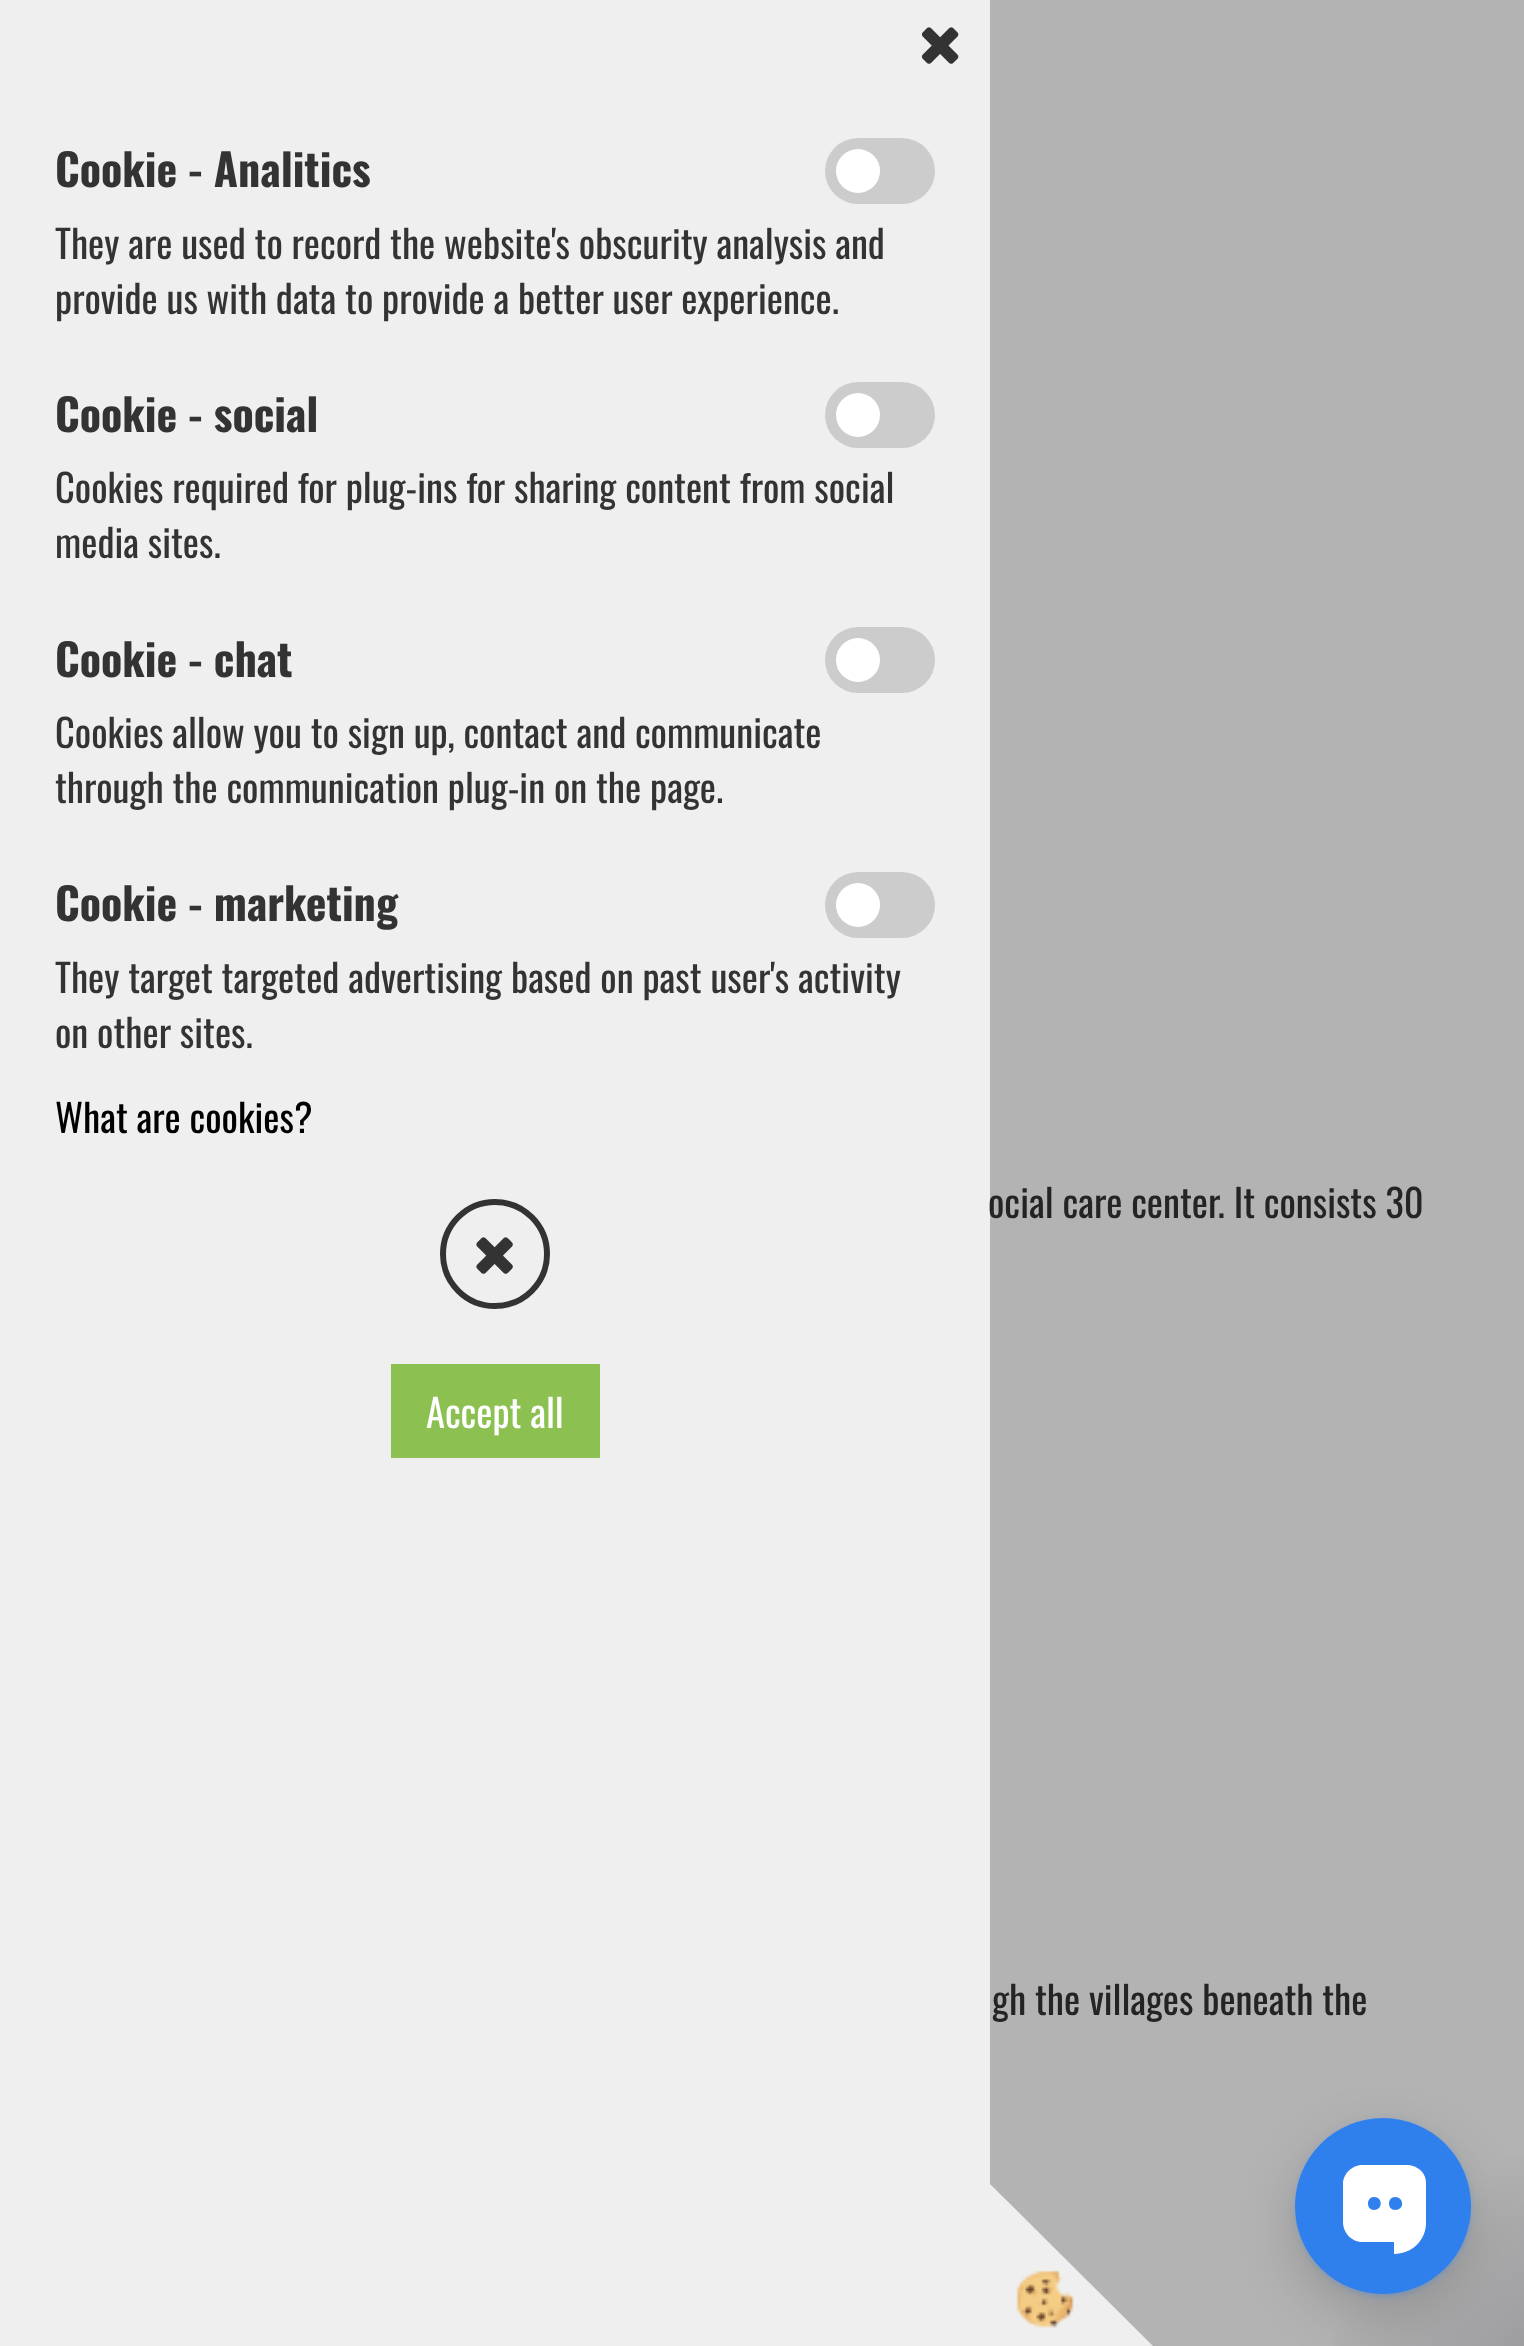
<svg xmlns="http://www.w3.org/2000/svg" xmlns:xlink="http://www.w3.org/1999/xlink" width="1524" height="2346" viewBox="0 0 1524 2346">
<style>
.cls-1{font:bold 44px Oswald;fill:#333333}
.cls-2{font:38.5px Oswald;fill:#333333}
.cls-3{font:38.5px Oswald;fill:#000000}
.cls-4{font:38.5px Oswald;fill:#ffffff}
.cls-5{font:38.5px Oswald;fill:#242424}
</style>
<defs>
<linearGradient id="g1" gradientUnits="userSpaceOnUse" x1="1251" y1="2074" x2="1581" y2="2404"><stop offset="0.5" stop-color="#b3b3b3"/><stop offset="1" stop-color="#929297"/></linearGradient>
</defs>
<rect width="100%" height="100%" fill="#b3b3b3"/>
<rect fill="#efefef" x="0" y="0" width="990" height="2346"/>
<image xlink:href="image0.png" x="921" y="27" width="38" height="37"/>
<rect fill="#cccccc" x="825" y="138" width="110" height="66" rx="33"/>
<circle fill="#ffffff" cx="858" cy="171" r="22"/>
<rect fill="#cccccc" x="825" y="382" width="110" height="66" rx="33"/>
<circle fill="#ffffff" cx="858" cy="415" r="22"/>
<rect fill="#cccccc" x="825" y="627" width="110" height="66" rx="33"/>
<circle fill="#ffffff" cx="858" cy="660" r="22"/>
<rect fill="#cccccc" x="825" y="872" width="110" height="66" rx="33"/>
<circle fill="#ffffff" cx="858" cy="905" r="22"/>
<circle fill="none" stroke="#333333" stroke-width="6" cx="495" cy="1254" r="52"/>
<image xlink:href="image1.png" x="476" y="1237" width="37" height="37"/>
<rect fill="#8cc152" x="391" y="1364" width="209" height="94"/>
<path fill="#efefef" d="M1155 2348H990V2184Z"/>
<image xlink:href="image2.png" x="1016" y="2270" width="58" height="58"/>
<rect fill="url(#g1)" x="1335" y="2157" width="189" height="189"/>
<rect fill="#000000" fill-opacity="0.16" filter="blur(27.5px)" x="1295" y="2140" width="176" height="176" rx="88"/>
<rect fill="#2f80ed" filter="blur(5.5px)" x="1301" y="2126" width="165" height="165" rx="82.5"/>
<circle fill="#2f80ed" cx="1383" cy="2206" r="88"/>
<path fill="#ffffff" d="M1407 2165H1362C1352 2165 1343 2174 1343 2184V2222C1343 2233 1352 2242 1362 2242H1394V2254C1412 2254 1426 2240 1426 2223V2184C1427 2174 1418 2165 1407 2165ZM1374 2210C1366 2210 1366 2197 1374 2197C1383 2197 1383 2210 1374 2210ZM1395 2210C1387 2210 1387 2197 1395 2197C1404 2197 1405 2210 1395 2210Z"/>
<text class="cls-1" x="55" y="187">Cookie - Analitics</text>
<text class="cls-2"><tspan x="55" y="259">They are used to record the website's obscurity analysis and</tspan><tspan x="55" y="314">provide us with data to provide a better user experience.</tspan></text>
<text class="cls-1" x="55" y="432">Cookie - social</text>
<text class="cls-2"><tspan x="55" y="503">Cookies required for plug-ins for sharing content from social</tspan><tspan x="55" y="558">media sites.</tspan></text>
<text class="cls-1" x="55" y="677">Cookie - chat</text>
<text class="cls-2"><tspan x="55" y="748">Cookies allow you to sign up, contact and communicate</tspan><tspan x="55" y="803">through the communication plug-in on the page.</tspan></text>
<text class="cls-1" x="55" y="921">Cookie - marketing</text>
<text class="cls-2"><tspan x="55" y="993">They target targeted advertising based on past user's activity</tspan><tspan x="55" y="1048">on other sites.</tspan></text>
<text class="cls-3" x="55" y="1133">What are cookies?</text>
<text class="cls-4" x="426" y="1428">Accept all</text>
<text class="cls-5" x="988" y="1218">ocial care center. It consists 30</text>
<text class="cls-5" x="992" y="2015">gh the villages beneath the</text>
</svg>
